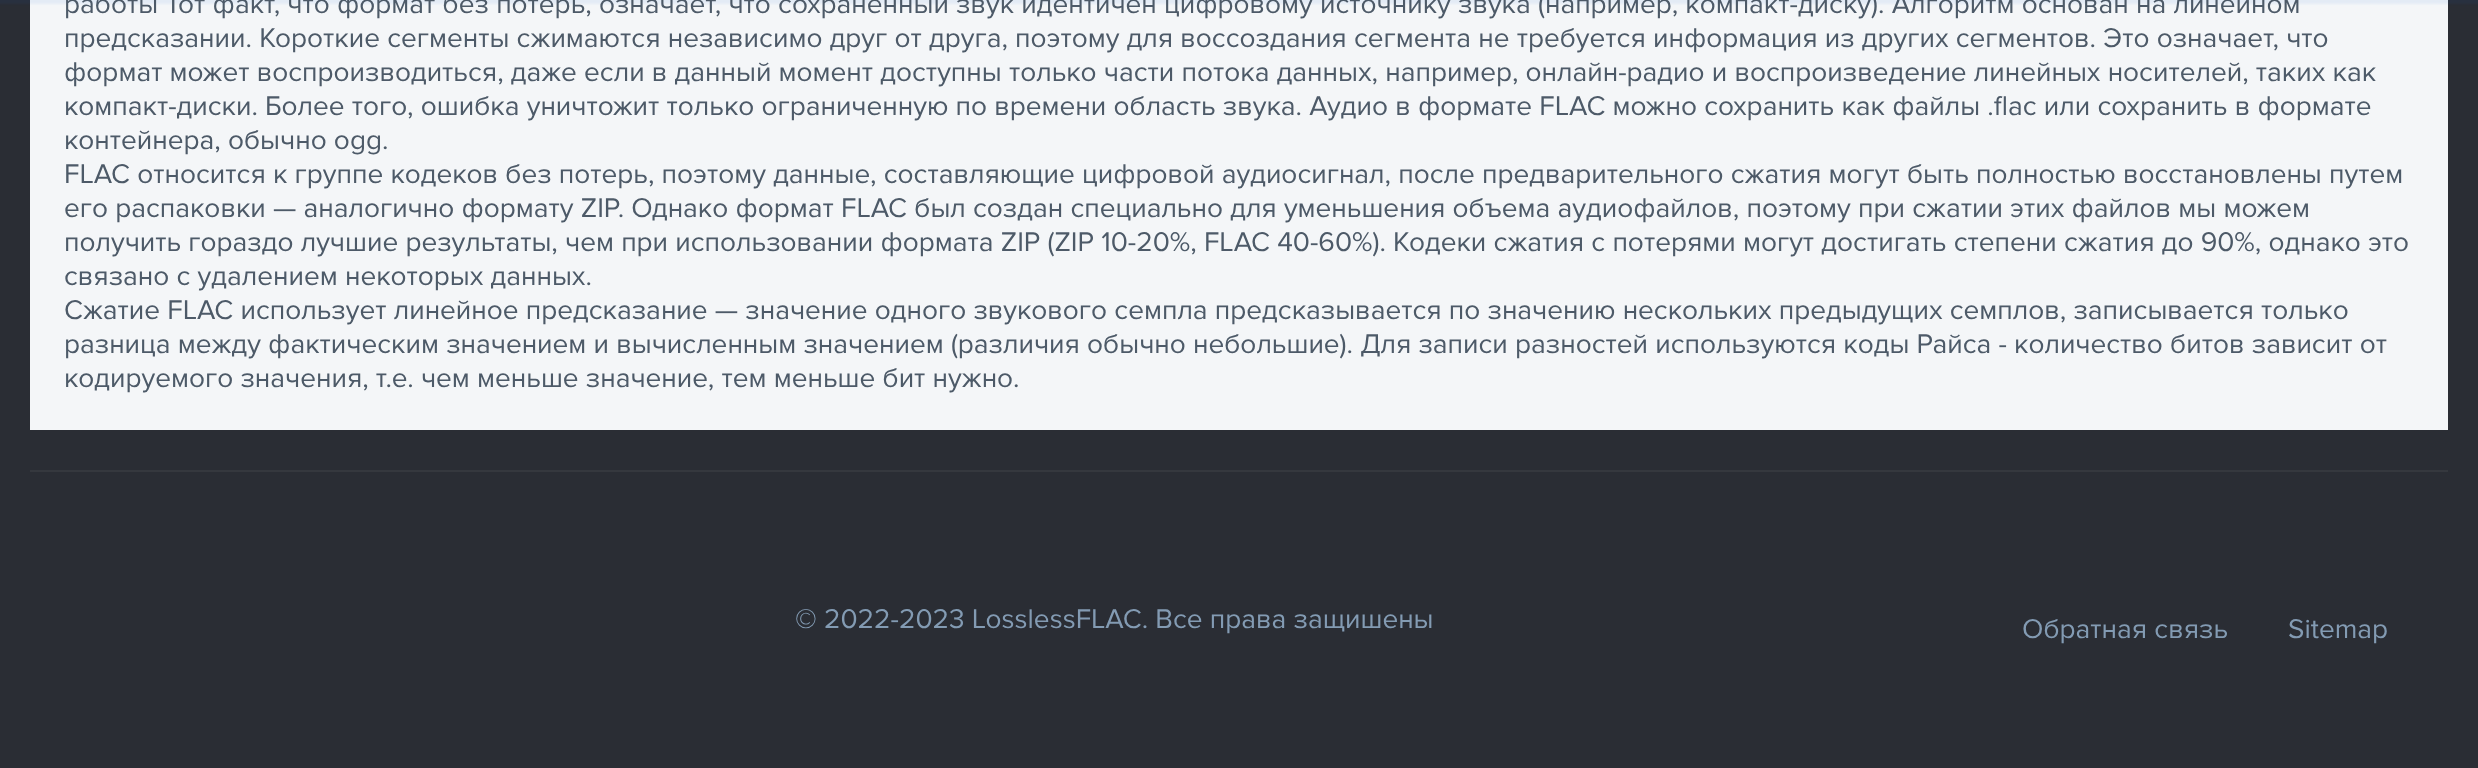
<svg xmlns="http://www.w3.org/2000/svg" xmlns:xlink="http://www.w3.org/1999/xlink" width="2478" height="768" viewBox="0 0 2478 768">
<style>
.cls-1{font:28px Proxima Nova;fill:#4d5a68}
.cls-2{font:28px Proxima Nova;fill:#839bb3}
</style>
<rect width="100%" height="100%" fill="#2a2d34"/>
<rect fill="#f4f6f8" x="30" y="0" width="2418" height="430"/>
<rect fill="#1566ce" fill-opacity="0.07" filter="blur(1px)" x="-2" y="-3" width="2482" height="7"/>
<rect fill="#35383e" x="30" y="470" width="2418" height="2"/>
<text class="cls-1"><tspan x="64" y="13">работы Тот факт, что формат без потерь, означает, что сохраненный звук идентичен цифровому источнику звука (например, компакт-диску). Алгоритм основан на линейном</tspan><tspan x="64" y="47">предсказании. Короткие сегменты сжимаются независимо друг от друга, поэтому для воссоздания сегмента не требуется информация из других сегментов. Это означает, что</tspan><tspan x="64" y="81">формат может воспроизводиться, даже если в данный момент доступны только части потока данных, например, онлайн-радио и воспроизведение линейных носителей, таких как</tspan><tspan x="64" y="115">компакт-диски. Более того, ошибка уничтожит только ограниченную по времени область звука. Аудио в формате FLAC можно сохранить как файлы .flac или сохранить в формате</tspan><tspan x="64" y="149">контейнера, обычно ogg.</tspan><tspan x="64" y="183">FLAC относится к группе кодеков без потерь, поэтому данные, составляющие цифровой аудиосигнал, после предварительного сжатия могут быть полностью восстановлены путем</tspan><tspan x="64" y="217">его распаковки — аналогично формату ZIP. Однако формат FLAC был создан специально для уменьшения объема аудиофайлов, поэтому при сжатии этих файлов мы можем</tspan><tspan x="64" y="251">получить гораздо лучшие результаты, чем при использовании формата ZIP (ZIP 10-20%, FLAC 40-60%). Кодеки сжатия с потерями могут достигать степени сжатия до 90%, однако это</tspan><tspan x="64" y="285">связано с удалением некоторых данных.</tspan><tspan x="64" y="319">Сжатие FLAC использует линейное предсказание — значение одного звукового семпла предсказывается по значению нескольких предыдущих семплов, записывается только</tspan><tspan x="64" y="353">разница между фактическим значением и вычисленным значением (различия обычно небольшие). Для записи разностей используются коды Райса - количество битов зависит от</tspan><tspan x="64" y="387">кодируемого значения, т.е. чем меньше значение, тем меньше бит нужно.</tspan></text>
<text class="cls-2" x="795" y="628">© 2022-2023 LosslessFLAC. Все права защишены</text>
<text class="cls-2" x="2022" y="638">Обратная связь</text>
<text class="cls-2" x="2288" y="638">Sitemap</text>
</svg>
